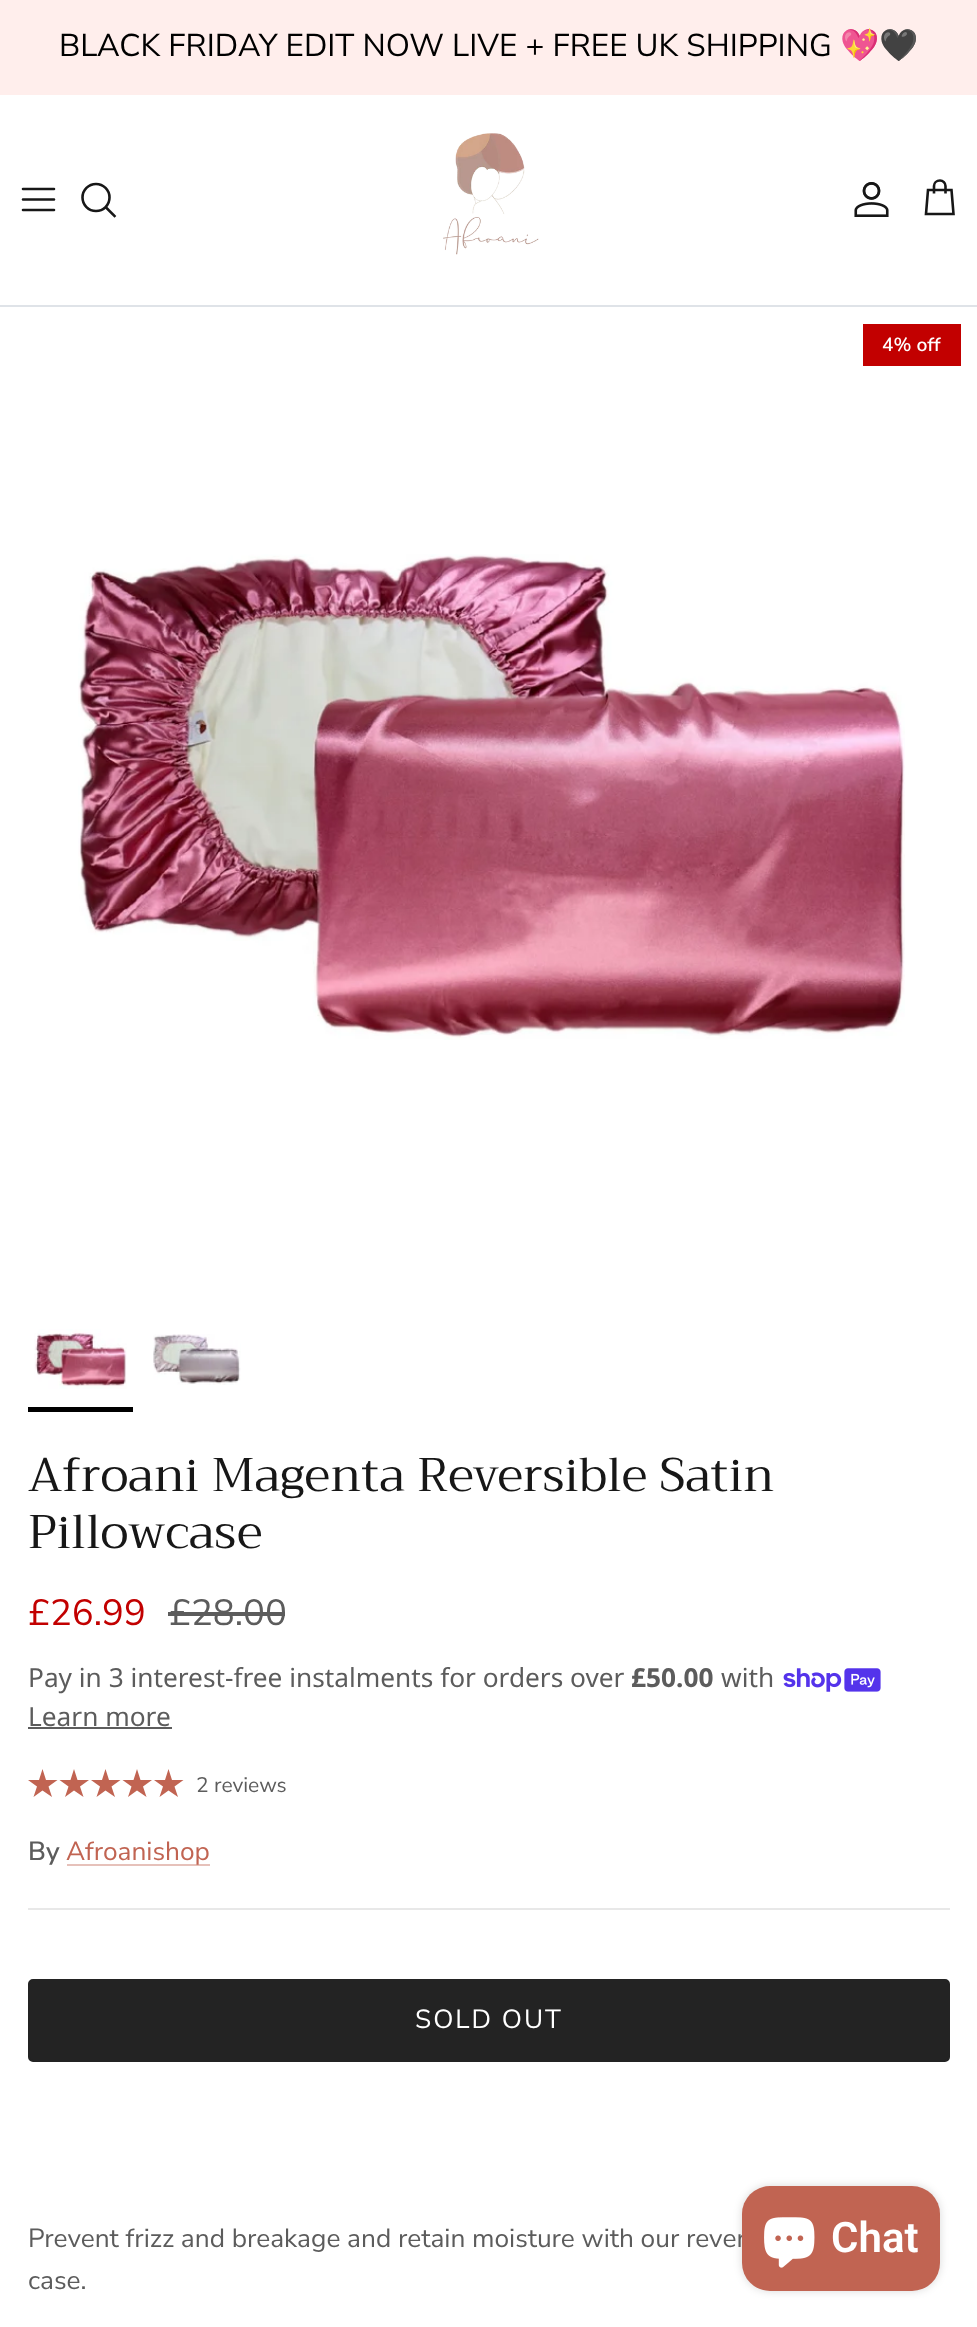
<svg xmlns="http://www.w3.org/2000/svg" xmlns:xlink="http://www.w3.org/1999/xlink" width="977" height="2327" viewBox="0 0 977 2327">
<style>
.cls-1{font:31.5px Nunito Sans;fill:#000000}
.cls-2{font:31.5px Noto Color Emoji;fill:#000000}
.cls-3{font:600 19px 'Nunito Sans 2';fill:#ffffff}
.cls-4{font:47.25px Trirong;fill:#171717}
.cls-5{font:36.5px Nunito Sans;fill:#c20000}
.cls-6{font:36.5px Nunito Sans;fill:#5c5c5c}
.cls-7{font:26.25px Noto Sans;fill:#5c5c5c}
.cls-8{font:bold 26.25px Noto Sans;fill:#5c5c5c}
.cls-9{font:21px Nunito Sans;fill:#5c5c5c}
.cls-10{font:600 26.25px Nunito Sans;fill:#5c5c5c}
.cls-11{font:26.25px Nunito Sans;fill:#c16452}
.cls-12{font:26.25px Nunito Sans;letter-spacing:2px;fill:#ffffff}
.cls-13{font:26.25px Nunito Sans;fill:#5c5c5c}
.cls-14{font:600 42px Roboto;fill:#ffffff}
</style>
<rect width="100%" height="100%" fill="#ffffff"/>
<rect fill="#ffeeec" x="0" y="0" width="977" height="95"/>
<rect fill="#dfe3e8" x="0" y="305" width="977" height="2"/>
<path fill="none" stroke="#171717" stroke-width="2.6" stroke-linecap="round" stroke-linejoin="round" d="M23 199.5H54M23 189H54M23 210H54"/>
<circle fill="none" stroke="#171717" stroke-width="2.6" cx="96" cy="197.5" r="13.5"/>
<path fill="none" stroke="#171717" stroke-width="2.6" stroke-linecap="square" d="M106.5 208L114.5 216"/>
<image xlink:href="image0.png" x="443" y="133" width="96" height="122"/>
<image xlink:href="image1.png" x="854" y="182" width="35" height="35"/>
<path fill="none" stroke="#171717" stroke-width="2.6" d="M945.5 193.5V186C945.5 183 943 180.5 940 180.5C936.5 180.5 934 183 934 186V193.5M928 190H951.5L953.5 214H926Z"/>
<rect fill="#c20000" x="863" y="324" width="98" height="42"/>
<image xlink:href="image2.png" x="78" y="554" width="827" height="486"/>
<image xlink:href="image3.png" x="34" y="1329" width="93" height="60"/>
<rect fill="#000000" x="28" y="1407" width="105" height="5"/>
<image xlink:href="image4.png" x="153" y="1334" width="88" height="51"/>
<rect fill="#5c5c5c" x="168" y="1612" width="117" height="4"/>
<image xlink:href="image5.png" x="783" y="1668" width="98" height="24"/>
<rect fill="#5c5c5c" x="28" y="1727" width="144" height="2"/>
<path fill="#c16452" fill-rule="evenodd" d="M46 1780H57.5L48.5 1786.5L52 1797L42.5 1790.5L33.5 1797L37 1786.5L28 1780H39L42.5 1769ZM77.5 1780H89L80 1786.5L83.5 1797L74 1790.5L65 1797L68.5 1786.5L59.5 1780H70.5L74 1769Z"/>
<path fill="#c16452" fill-rule="evenodd" d="M109 1780H120.5L111.5 1786.5L115 1797L105.5 1790.5L96.5 1797L100 1786.5L91 1780H102L105.5 1769ZM140.5 1780H152L143 1786.5L146.5 1797L137 1790.5L128 1797L131.5 1786.5L122.5 1780H133.5L137 1769Z"/>
<path fill="#c16452" fill-rule="evenodd" d="M172 1780H183.5L174.5 1786.5L178 1797L168.5 1790.5L159.5 1797L163 1786.5L154 1780H165L168.5 1769Z"/>
<rect fill="#e6c1ba" x="67" y="1864" width="143" height="2"/>
<rect fill="#e8e8e8" x="28" y="1908" width="922" height="2"/>
<rect fill="#232323" stroke="#232323" stroke-width="2" x="29" y="1980" width="920" height="81" rx="4"/>
<rect fill="#000000" fill-opacity="0.15" filter="blur(4.5px)" x="742" y="2186" width="198" height="105" rx="28"/>
<text class="cls-1" x="59" y="56">BLACK FRIDAY EDIT NOW LIVE + FREE UK SHIPPING</text>
<text class="cls-2" x="840" y="56">💖🖤</text>
<text class="cls-3" x="882" y="351">4% off</text>
<text class="cls-4"><tspan x="28" y="1491">Afroani Magenta Reversible Satin</tspan><tspan x="28" y="1548">Pillowcase</tspan></text>
<text class="cls-5" x="28" y="1625">£26.99</text>
<text class="cls-6" x="169" y="1625">£28.00</text>
<text class="cls-7" x="28" y="1687">Pay in 3 interest-free instalments for orders over</text>
<text class="cls-8" x="631" y="1687">£50.00</text>
<text class="cls-7" x="721" y="1687">with</text>
<text class="cls-7" x="28" y="1726">Learn more</text>
<text class="cls-9" x="196" y="1792">2 reviews</text>
<text class="cls-10" x="28" y="1860">By</text>
<text class="cls-11" x="66" y="1860">Afroanishop</text>
<text class="cls-12" x="415" y="2028">SOLD OUT</text>
<text class="cls-13"><tspan x="28" y="2247">Prevent frizz and breakage and retain moisture with our rever</tspan><tspan x="28" y="2289">case.</tspan></text>
<rect fill="#c16452" x="742" y="2186" width="198" height="105" rx="28"/>
<image xlink:href="image6.png" x="764" y="2217" width="51" height="51"/>
<text class="cls-14" x="831" y="2252">Chat</text>
</svg>
